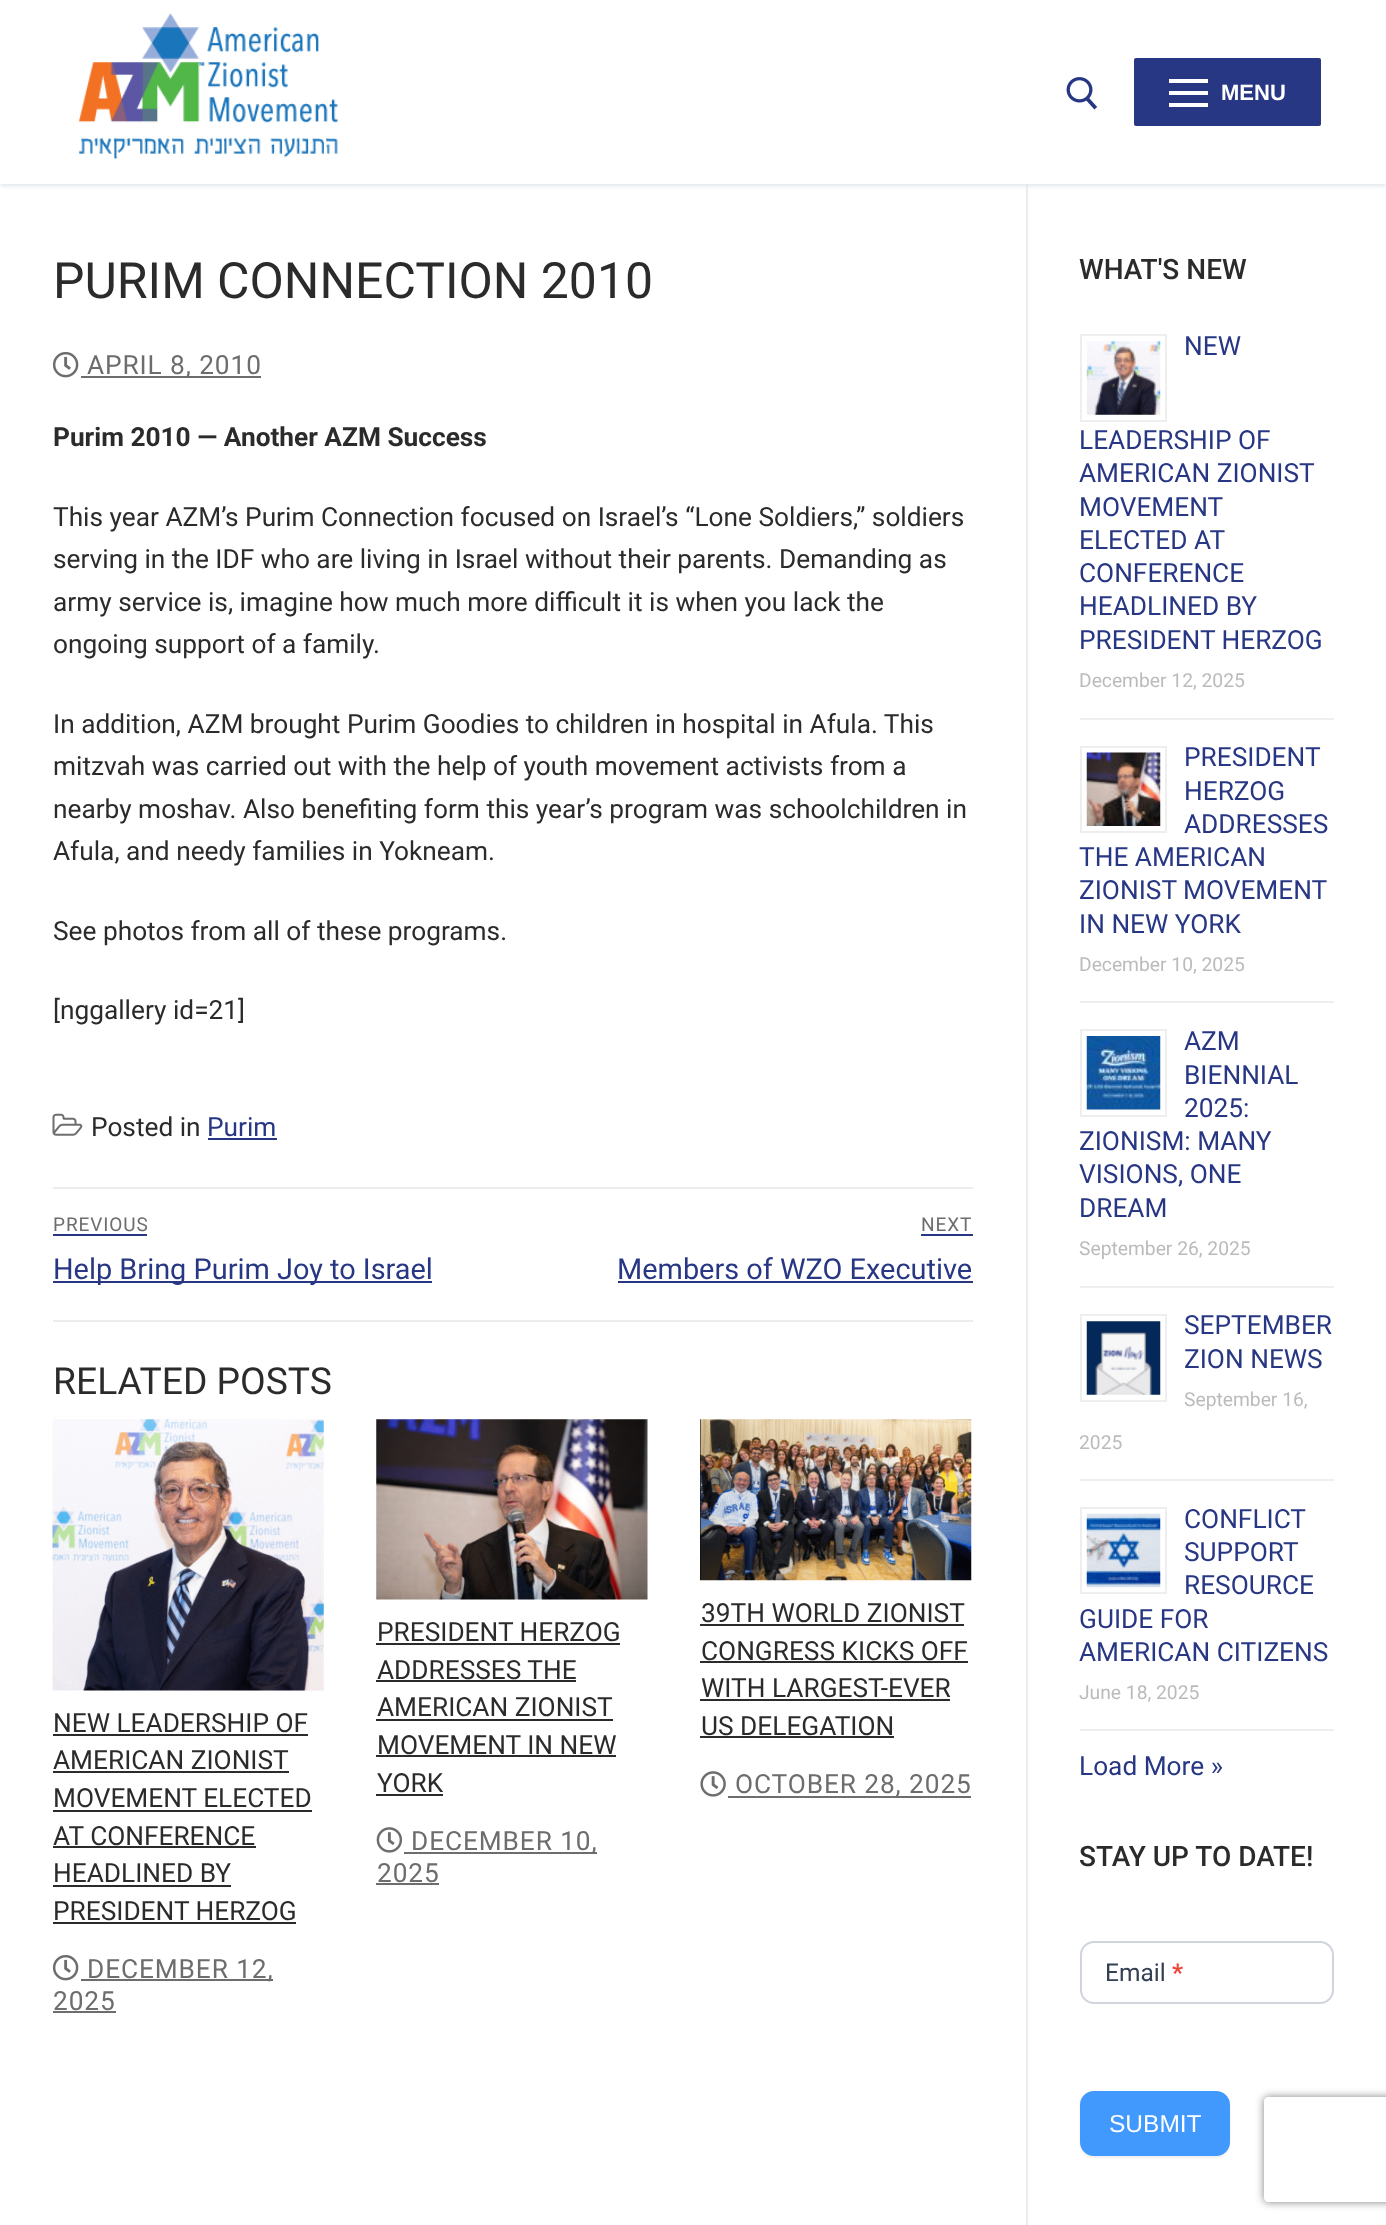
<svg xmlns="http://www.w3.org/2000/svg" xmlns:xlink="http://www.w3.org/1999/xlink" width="1386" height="2225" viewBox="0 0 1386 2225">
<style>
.cls-1{font:bold 22px Liberation Sans;fill:#ffffff}
.cls-2{font:49.9px Roboto;fill:#2b2b2b}
.cls-3{font:26.25px Roboto;letter-spacing:0.9px;fill:#6d6d6d}
.cls-4{font:bold 26.25px Roboto;fill:#2b2b2b}
.cls-5{font:26.25px Roboto;fill:#2b2b2b}
.cls-6{font:26.25px Roboto;fill:#283784}
.cls-7{font:19px Roboto;letter-spacing:0.9px;fill:#6d6d6d}
.cls-8{font:28.9px Roboto;fill:#283784}
.cls-9{font:37.25px Roboto;fill:#2b2b2b}
.cls-10{font:500 28px Roboto;fill:#2b2b2b}
.cls-11{font:19.25px Roboto;fill:#bbbbbb}
.cls-12{font:24.5px Roboto;fill:#344054}
.cls-13{font:bold 24.5px Roboto;fill:#f04438}
.cls-14{font:24.5px Liberation Sans;fill:#ffffff}
</style>
<defs>
<clipPath id="clip1"><path d="M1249 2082H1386V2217H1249ZM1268 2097H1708C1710 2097 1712 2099 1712 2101V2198C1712 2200 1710 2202 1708 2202H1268C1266 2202 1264 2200 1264 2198V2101C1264 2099 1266 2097 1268 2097Z" clip-rule="evenodd"/></clipPath>
</defs>
<rect width="100%" height="100%" fill="#ffffff"/>
<rect fill="#eaecee" x="1026" y="184" width="2" height="2041"/>
<rect fill="#e1e5ea" filter="blur(2px)" x="0" y="2" width="1386" height="184"/>
<rect fill="#ffffff" x="0" y="0" width="1386" height="184"/>
<image xlink:href="image0.png" x="78" y="13" width="260" height="146"/>
<image xlink:href="image1.png" x="1066" y="77" width="32" height="33"/>
<rect fill="#283784" x="1134" y="58" width="187" height="68" rx="2"/>
<rect fill="#ffffff" x="1169" y="91" width="39" height="4"/>
<rect fill="#ffffff" x="1169" y="79" width="39" height="4"/>
<rect fill="#ffffff" x="1169" y="103" width="39" height="4"/>
<image xlink:href="image2.png" x="52" y="351" width="27" height="27"/>
<rect fill="#6d6d6d" x="81" y="376" width="180" height="2"/>
<image xlink:href="image3.png" x="52" y="1113" width="31" height="23"/>
<rect fill="#283784" x="208" y="1138" width="69" height="2"/>
<rect fill="#eaecee" x="53" y="1187" width="920" height="2"/>
<rect fill="#eaecee" x="53" y="1320" width="920" height="2"/>
<rect fill="#283784" x="53" y="1234" width="94" height="2"/>
<rect fill="#283784" x="53" y="1281" width="379" height="2"/>
<rect fill="#283784" x="921" y="1234" width="52" height="2"/>
<rect fill="#283784" x="618" y="1281" width="355" height="2"/>
<image xlink:href="image4.png" x="52" y="1419" width="272" height="272"/>
<rect fill="#2b2b2b" x="53" y="1734" width="255" height="2"/>
<rect fill="#2b2b2b" x="53" y="1771" width="236" height="2"/>
<rect fill="#2b2b2b" x="53" y="1810" width="259" height="2"/>
<rect fill="#2b2b2b" x="53" y="1846" width="203" height="2"/>
<rect fill="#2b2b2b" x="53" y="1885" width="178" height="2"/>
<rect fill="#2b2b2b" x="53" y="1922" width="243" height="2"/>
<image xlink:href="image2.png" x="52" y="1954" width="27" height="27"/>
<rect fill="#6d6d6d" x="81" y="1979" width="192" height="2"/>
<rect fill="#6d6d6d" x="53" y="2011" width="63" height="2"/>
<image xlink:href="image5.png" x="376" y="1419" width="272" height="181"/>
<rect fill="#2b2b2b" x="376" y="1643" width="244" height="2"/>
<rect fill="#2b2b2b" x="376" y="1680" width="200" height="2"/>
<rect fill="#2b2b2b" x="376" y="1719" width="237" height="2"/>
<rect fill="#2b2b2b" x="376" y="1755" width="240" height="2"/>
<rect fill="#2b2b2b" x="376" y="1794" width="67" height="2"/>
<image xlink:href="image6.png" x="376" y="1827" width="27" height="26"/>
<rect fill="#6d6d6d" x="404" y="1852" width="193" height="2"/>
<rect fill="#6d6d6d" x="376" y="1883" width="63" height="2"/>
<image xlink:href="image7.png" x="700" y="1419" width="272" height="162"/>
<rect fill="#2b2b2b" x="700" y="1624" width="264" height="2"/>
<rect fill="#2b2b2b" x="700" y="1661" width="268" height="2"/>
<rect fill="#2b2b2b" x="700" y="1699" width="250" height="2"/>
<rect fill="#2b2b2b" x="700" y="1736" width="194" height="2"/>
<image xlink:href="image8.png" x="700" y="1771" width="26" height="26"/>
<rect fill="#6d6d6d" x="728" y="1796" width="243" height="2"/>
<rect fill="#eeeeee" x="1080" y="718" width="254" height="2"/>
<rect fill="none" stroke="#eeeeee" stroke-width="2" x="1081" y="335" width="85" height="86"/>
<image xlink:href="image9.png" x="1086" y="341" width="75" height="74"/>
<rect fill="#eeeeee" x="1080" y="1001" width="254" height="2"/>
<rect fill="none" stroke="#eeeeee" stroke-width="2" x="1081" y="747" width="85" height="85"/>
<image xlink:href="image10.png" x="1086" y="752" width="75" height="74"/>
<rect fill="#eeeeee" x="1080" y="1286" width="254" height="2"/>
<rect fill="none" stroke="#eeeeee" stroke-width="2" x="1081" y="1030" width="85" height="86"/>
<image xlink:href="image11.png" x="1086" y="1036" width="75" height="74"/>
<rect fill="#eeeeee" x="1080" y="1479" width="254" height="2"/>
<rect fill="none" stroke="#eeeeee" stroke-width="2" x="1081" y="1315" width="85" height="86"/>
<image xlink:href="image12.png" x="1086" y="1321" width="75" height="74"/>
<rect fill="#eeeeee" x="1080" y="1729" width="254" height="2"/>
<rect fill="none" stroke="#eeeeee" stroke-width="2" x="1081" y="1508" width="85" height="85"/>
<image xlink:href="image13.png" x="1086" y="1513" width="75" height="75"/>
<rect fill="none" stroke="#d0d5dd" stroke-width="2" x="1081" y="1942" width="252" height="61" rx="13"/>
<rect fill="#eeeeee" filter="blur(1px)" x="1080" y="2093" width="150" height="65" rx="14"/>
<rect fill="#4199fd" stroke="#4199fd" stroke-width="2" x="1081" y="2092" width="148" height="63" rx="13"/>
<g clip-path="url(#clip1)">
<rect fill="#808080" filter="blur(4.5px)" x="1264" y="2097" width="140" height="105" rx="4"/>
</g>
<text class="cls-1" x="1221" y="100">MENU</text>
<text class="cls-2" x="53" y="298">PURIM CONNECTION 2010</text>
<text class="cls-3" x="87" y="374">APRIL 8, 2010</text>
<text class="cls-4" x="53" y="446">Purim 2010 — Another AZM Success</text>
<text class="cls-5"><tspan x="53" y="526">This year AZM’s Purim Connection focused on Israel’s “Lone Soldiers,” soldiers</tspan><tspan x="53" y="568">serving in the IDF who are living in Israel without their parents. Demanding as</tspan><tspan x="53" y="611">army service is, imagine how much more difficult it is when you lack the</tspan><tspan x="53" y="653">ongoing support of a family.</tspan></text>
<text class="cls-5"><tspan x="53" y="733">In addition, AZM brought Purim Goodies to children in hospital in Afula. This</tspan><tspan x="53" y="775">mitzvah was carried out with the help of youth movement activists from a</tspan><tspan x="53" y="818">nearby moshav. Also benefiting form this year’s program was schoolchildren in</tspan><tspan x="53" y="860">Afula, and needy families in Yokneam.</tspan></text>
<text class="cls-5" x="53" y="940">See photos from all of these programs.</text>
<text class="cls-5" x="53" y="1019">[nggallery id=21]</text>
<text class="cls-5" x="91" y="1136">Posted in</text>
<text class="cls-6" x="207" y="1136">Purim</text>
<text class="cls-7" x="53" y="1231">PREVIOUS</text>
<text class="cls-8" x="53" y="1279">Help Bring Purim Joy to Israel</text>
<text class="cls-7" x="921" y="1231">NEXT</text>
<text class="cls-8" x="617" y="1279">Members of WZO Executive</text>
<text class="cls-9" x="53" y="1394">RELATED POSTS</text>
<text class="cls-5"><tspan x="53" y="1732">NEW LEADERSHIP OF</tspan><tspan x="53" y="1769">AMERICAN ZIONIST</tspan><tspan x="53" y="1807">MOVEMENT ELECTED</tspan><tspan x="53" y="1845">AT CONFERENCE</tspan><tspan x="53" y="1882">HEADLINED BY</tspan><tspan x="53" y="1920">PRESIDENT HERZOG</tspan></text>
<text class="cls-3" x="87" y="1978">DECEMBER 12,</text>
<text class="cls-3" x="53" y="2010">2025</text>
<text class="cls-5"><tspan x="377" y="1641">PRESIDENT HERZOG</tspan><tspan x="377" y="1679">ADDRESSES THE</tspan><tspan x="377" y="1716">AMERICAN ZIONIST</tspan><tspan x="377" y="1754">MOVEMENT IN NEW</tspan><tspan x="377" y="1792">YORK</tspan></text>
<text class="cls-3" x="411" y="1850">DECEMBER 10,</text>
<text class="cls-3" x="377" y="1882">2025</text>
<text class="cls-5"><tspan x="701" y="1622">39TH WORLD ZIONIST</tspan><tspan x="701" y="1660">CONGRESS KICKS OFF</tspan><tspan x="701" y="1697">WITH LARGEST-EVER</tspan><tspan x="701" y="1735">US DELEGATION</tspan></text>
<text class="cls-3" x="735" y="1793">OCTOBER 28, 2025</text>
<text class="cls-10" x="1079" y="279">WHAT'S NEW</text>
<text class="cls-6" x="1184" y="355">NEW</text>
<text class="cls-6"><tspan x="1079" y="449">LEADERSHIP OF</tspan><tspan x="1079" y="482">AMERICAN ZIONIST</tspan><tspan x="1079" y="516">MOVEMENT</tspan><tspan x="1079" y="549">ELECTED AT</tspan><tspan x="1079" y="582">CONFERENCE</tspan><tspan x="1079" y="615">HEADLINED BY</tspan><tspan x="1079" y="649">PRESIDENT HERZOG</tspan></text>
<text class="cls-11" x="1079" y="687">December 12, 2025</text>
<text class="cls-6"><tspan x="1184" y="766">PRESIDENT</tspan><tspan x="1184" y="800">HERZOG</tspan><tspan x="1184" y="833">ADDRESSES</tspan></text>
<text class="cls-6"><tspan x="1079" y="866">THE AMERICAN</tspan><tspan x="1079" y="899">ZIONIST MOVEMENT</tspan><tspan x="1079" y="933">IN NEW YORK</tspan></text>
<text class="cls-11" x="1079" y="971">December 10, 2025</text>
<text class="cls-6"><tspan x="1184" y="1050">AZM</tspan><tspan x="1184" y="1084">BIENNIAL</tspan><tspan x="1184" y="1117">2025:</tspan></text>
<text class="cls-6"><tspan x="1079" y="1150">ZIONISM: MANY</tspan><tspan x="1079" y="1183">VISIONS, ONE</tspan><tspan x="1079" y="1217">DREAM</tspan></text>
<text class="cls-11" x="1079" y="1255">September 26, 2025</text>
<text class="cls-6"><tspan x="1184" y="1334">SEPTEMBER</tspan><tspan x="1184" y="1368">ZION NEWS</tspan></text>
<text class="cls-11" x="1184" y="1406">September 16,</text>
<text class="cls-11" x="1079" y="1449">2025</text>
<text class="cls-6"><tspan x="1184" y="1528">CONFLICT</tspan><tspan x="1184" y="1561">SUPPORT</tspan><tspan x="1184" y="1594">RESOURCE</tspan></text>
<text class="cls-6"><tspan x="1079" y="1628">GUIDE FOR</tspan><tspan x="1079" y="1661">AMERICAN CITIZENS</tspan></text>
<text class="cls-11" x="1079" y="1699">June 18, 2025</text>
<text class="cls-6" x="1079" y="1775">Load More »</text>
<text class="cls-10" x="1079" y="1866">STAY UP TO DATE!</text>
<text class="cls-12" x="1105" y="1981">Email</text>
<text class="cls-13" x="1172" y="1981">*</text>
<text class="cls-14" x="1109" y="2132">SUBMIT</text>
</svg>
